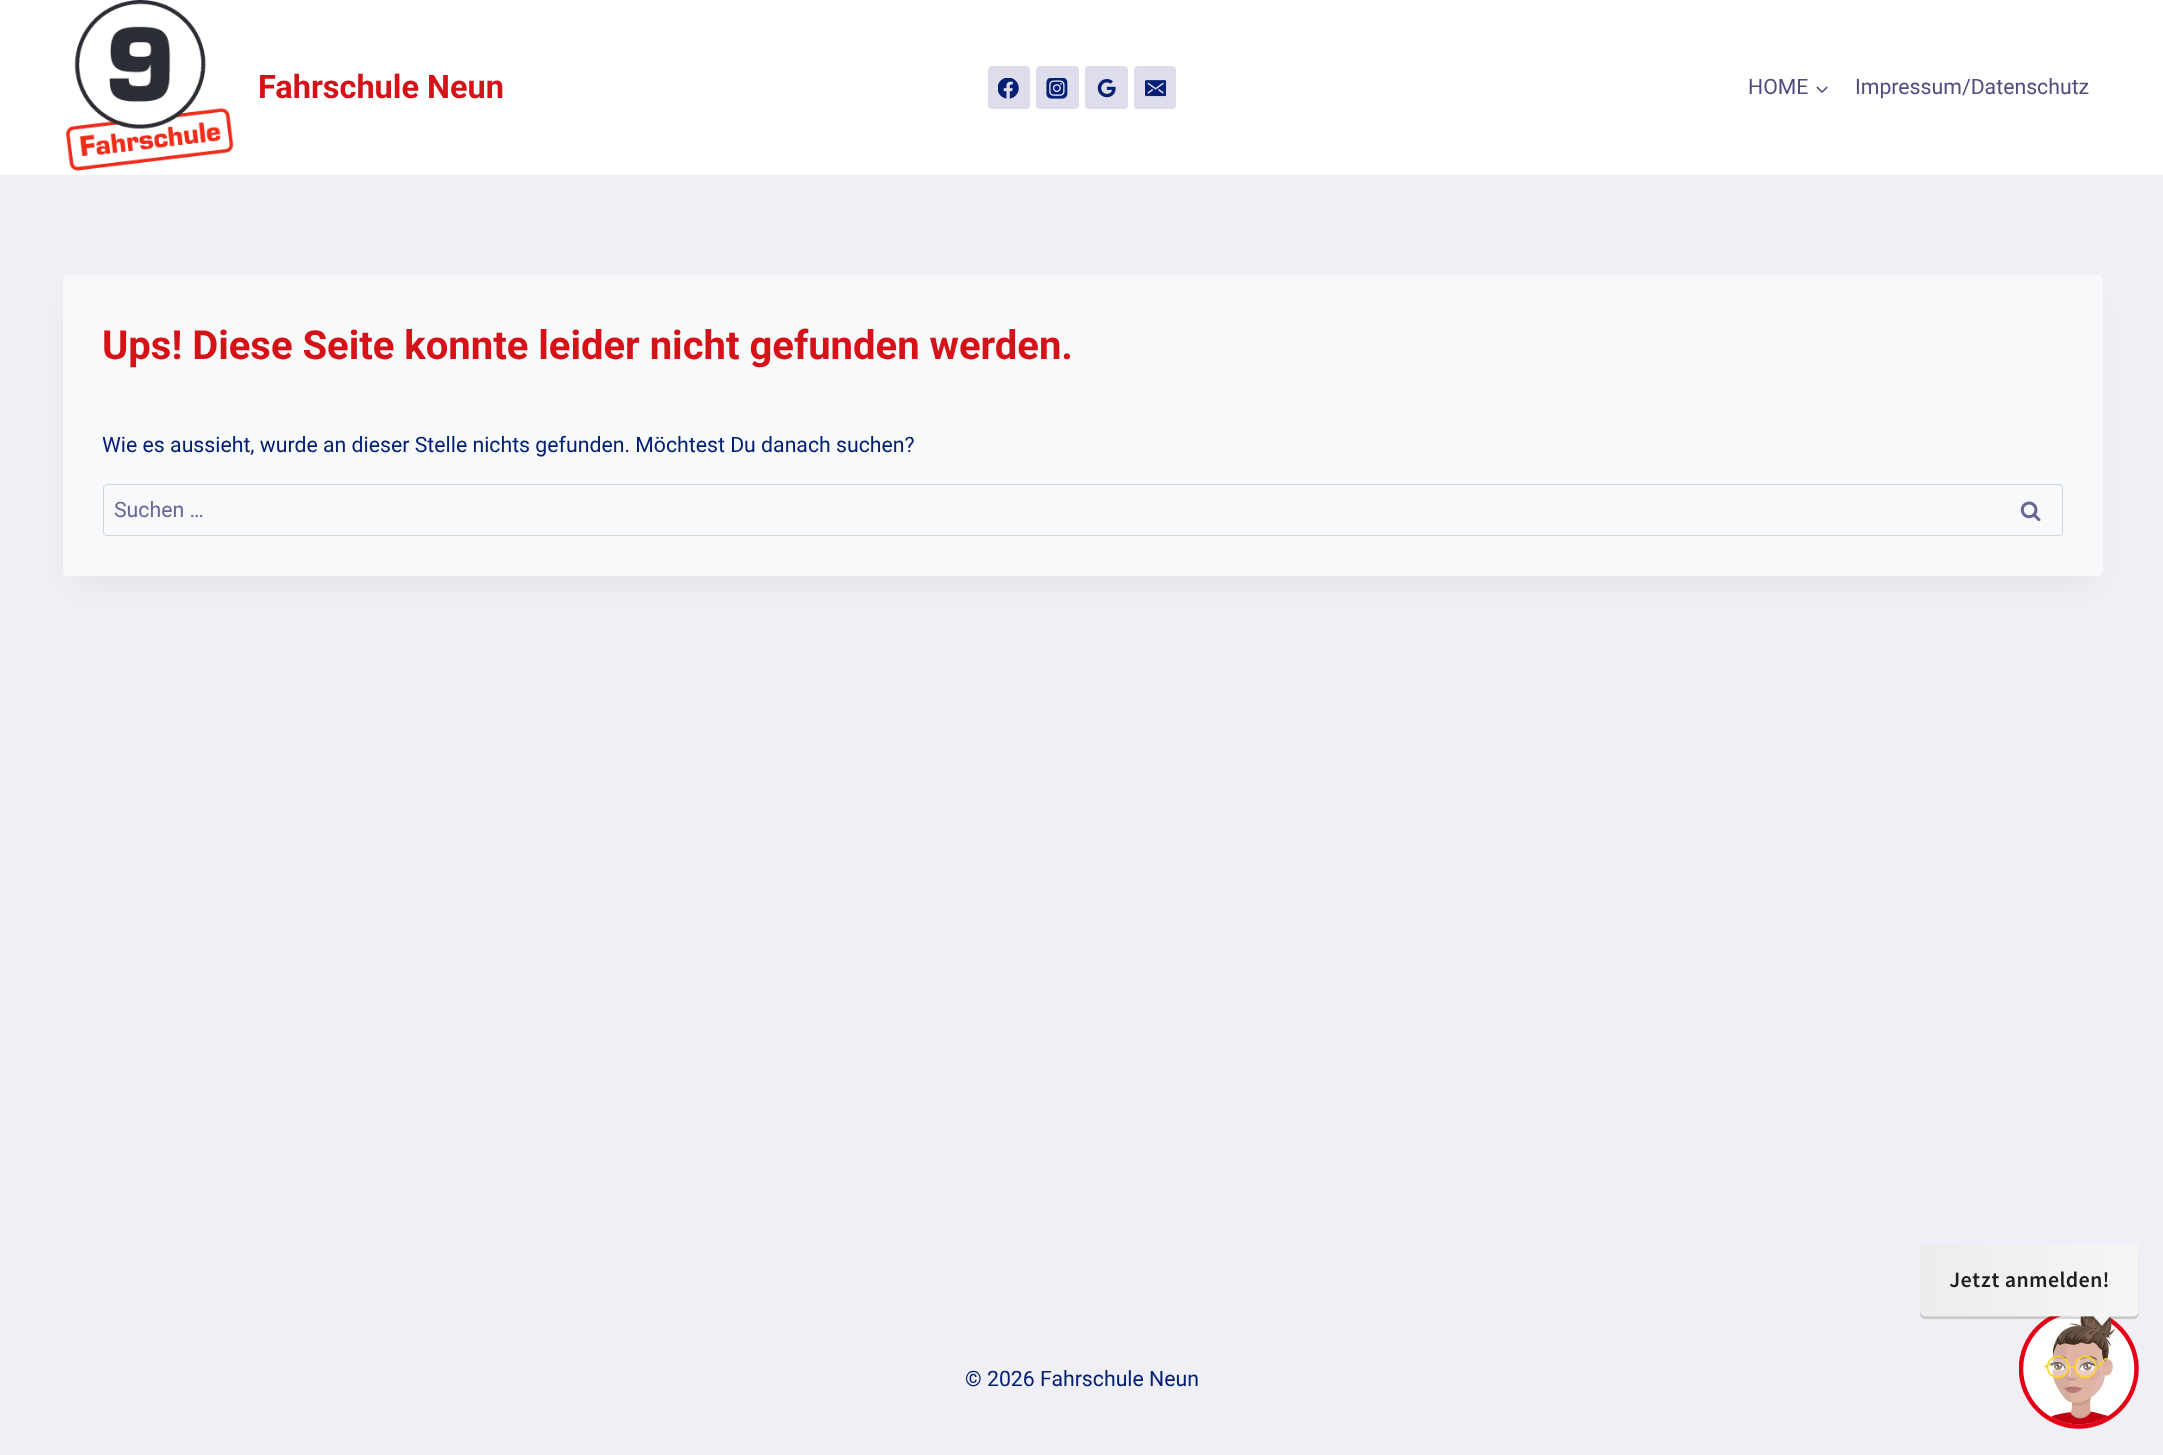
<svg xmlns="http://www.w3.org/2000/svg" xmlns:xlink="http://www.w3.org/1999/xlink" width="2163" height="1455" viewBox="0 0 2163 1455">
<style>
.cls-1{font:bold 32.5px Roboto;fill:#d41217}
.cls-2{font:21.25px Roboto;fill:#514d7c}
.cls-3{font:bold 40px Roboto;fill:#d41217}
.cls-4{font:21.25px Roboto;fill:#032075}
.cls-5{font:21.25px Roboto;fill:#666699}
</style>
<rect width="100%" height="100%" fill="#efeff5"/>
<rect fill="#ffffff" x="0" y="0" width="2163" height="175"/>
<image xlink:href="image0.png" x="66" y="0" width="168" height="171"/>
<rect fill="#deddeb" x="988" y="66" width="42" height="43" rx="4"/>
<image xlink:href="image1.png" x="998" y="78" width="21" height="21"/>
<rect fill="#deddeb" x="1036" y="66" width="43" height="43" rx="4"/>
<image xlink:href="image2.png" x="1046" y="78" width="22" height="21"/>
<rect fill="#deddeb" x="1085" y="66" width="43" height="43" rx="4"/>
<image xlink:href="image3.png" x="1097" y="79" width="19" height="19"/>
<rect fill="#deddeb" x="1134" y="66" width="42" height="43" rx="4"/>
<image xlink:href="image4.png" x="1145" y="80" width="21" height="17"/>
<image xlink:href="image5.png" x="1816" y="86" width="12" height="7"/>
<rect fill="#000000" fill-opacity="0.05" filter="blur(15.5px)" x="75" y="306" width="2015" height="277"/>
<rect fill="#f8f9fa" x="63" y="275" width="2040" height="301" rx="5"/>
<rect fill="none" stroke="#cbd5e0" x="103.5" y="484.5" width="1959" height="51" rx="3.5"/>
<image xlink:href="image6.png" x="2020" y="501" width="21" height="20"/>
<image xlink:href="image8.png" x="2019" y="1316" width="120" height="113"/>
<image xlink:href="image7.png" x="1920" y="1243" width="219" height="87"/>
<text class="cls-1" x="258" y="98">Fahrschule Neun</text>
<text class="cls-2" x="1748" y="94">HOME</text>
<text class="cls-2" x="1855" y="94">Impressum/Datenschutz</text>
<text class="cls-3" x="102" y="359">Ups! Diese Seite konnte leider nicht gefunden werden.</text>
<text class="cls-4" x="102" y="452">Wie es aussieht, wurde an dieser Stelle nichts gefunden. Möchtest Du danach suchen?</text>
<text class="cls-5" x="114" y="517">Suchen …</text>
<text class="cls-4" x="965" y="1386">© 2026 Fahrschule Neun</text>
</svg>
